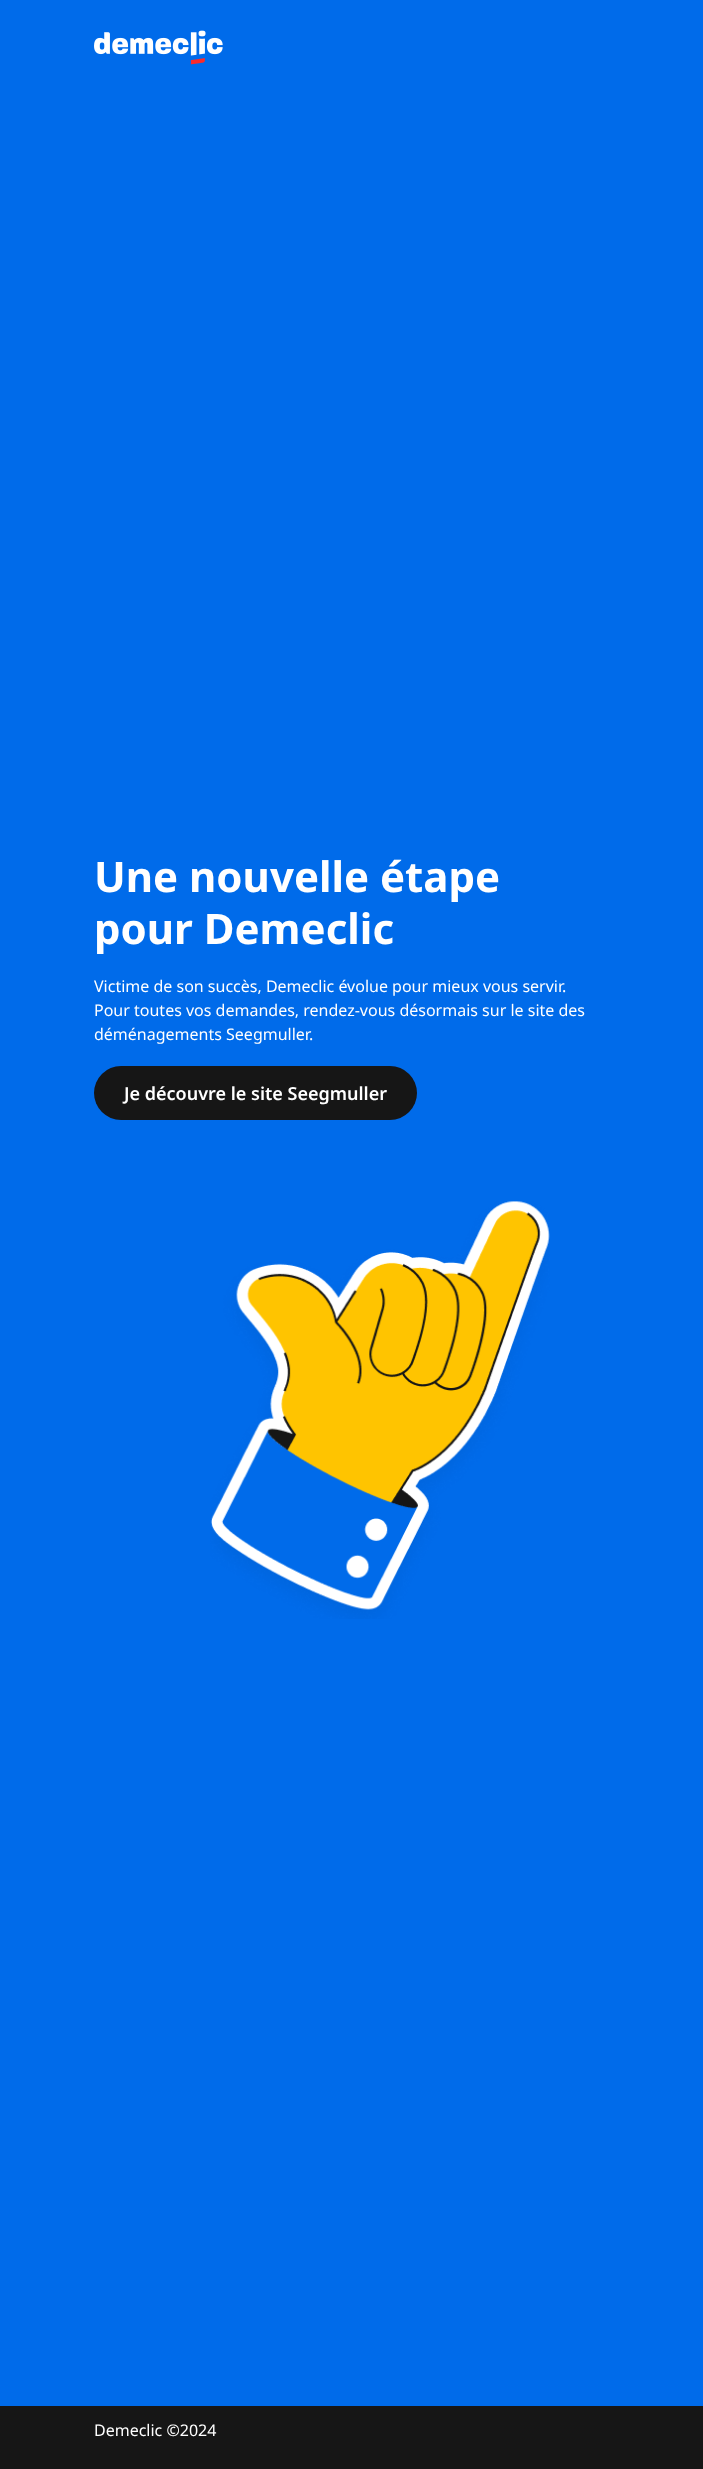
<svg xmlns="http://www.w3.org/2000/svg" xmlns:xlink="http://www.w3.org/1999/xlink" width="703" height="2469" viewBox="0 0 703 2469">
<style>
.cls-1{font:bold 42px Noto Sans;fill:#ffffff}
.cls-2{font:16px Noto Sans;fill:#ffffff}
.cls-3{font:600 18px Noto Sans;fill:#ffffff}
</style>
<rect width="100%" height="100%" fill="#006bea"/>
<image xlink:href="image0.png" x="94" y="30" width="129" height="35"/>
<rect fill="#161616" x="94" y="1066" width="323" height="54" rx="27"/>
<image xlink:href="image1.png" x="210" y="1201" width="340" height="418"/>
<rect fill="#161616" x="0" y="2406" width="703" height="63"/>
<text class="cls-1"><tspan x="94" y="892">Une nouvelle étape</tspan><tspan x="94" y="944">pour Demeclic</tspan></text>
<text class="cls-2"><tspan x="94" y="992">Victime de son succès, Demeclic évolue pour mieux vous servir.</tspan><tspan x="94" y="1016">Pour toutes vos demandes, rendez-vous désormais sur le site des</tspan><tspan x="94" y="1040">déménagements Seegmuller.</tspan></text>
<text class="cls-3" x="124" y="1100">Je découvre le site Seegmuller</text>
<text class="cls-2" x="94" y="2436">Demeclic ©2024</text>
</svg>
